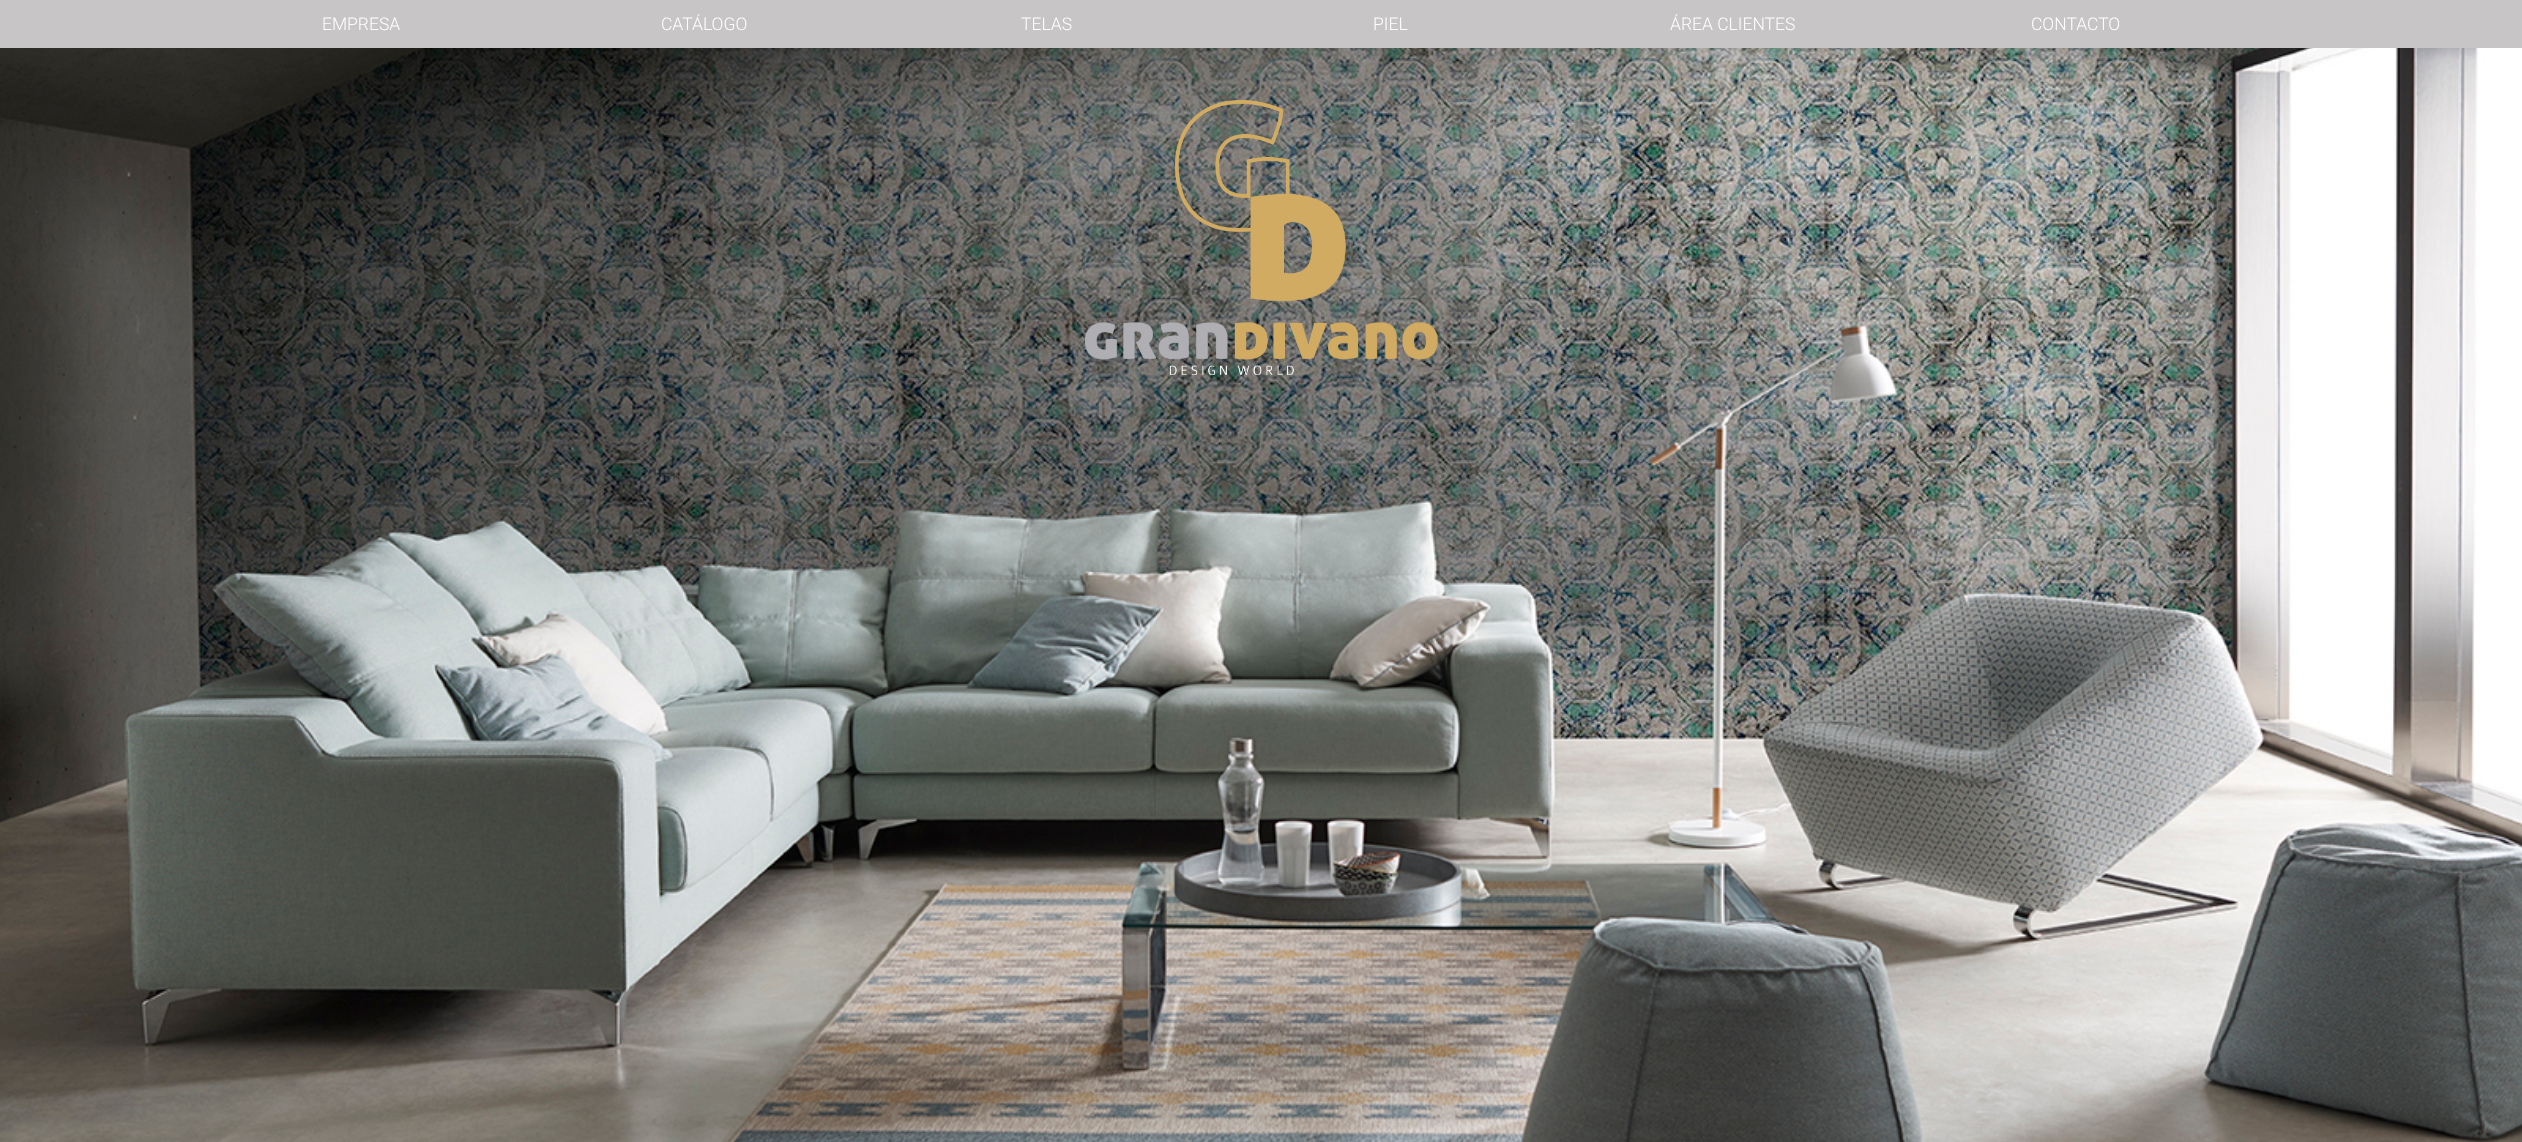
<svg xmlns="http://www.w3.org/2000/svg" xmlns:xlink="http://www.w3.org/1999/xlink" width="2522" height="1142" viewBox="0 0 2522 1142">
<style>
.cls-1{font:300 17.5px Roboto;fill:#ffffff}
</style>
<rect width="100%" height="100%" fill="#ffffff"/>
<rect fill="#c7c5c6" x="0" y="0" width="2522" height="48"/>
<image xlink:href="image0.png" x="0" y="48" width="2522" height="1094"/>
<image xlink:href="image1.png" x="1085" y="100" width="353" height="275"/>
<text class="cls-1" x="322" y="30">EMPRESA</text>
<text class="cls-1" x="661" y="30">CATÁLOGO</text>
<text class="cls-1" x="1021" y="30">TELAS</text>
<text class="cls-1" x="1373" y="30">PIEL</text>
<text class="cls-1" x="1670" y="30">ÁREA CLIENTES</text>
<text class="cls-1" x="2031" y="30">CONTACTO</text>
</svg>
